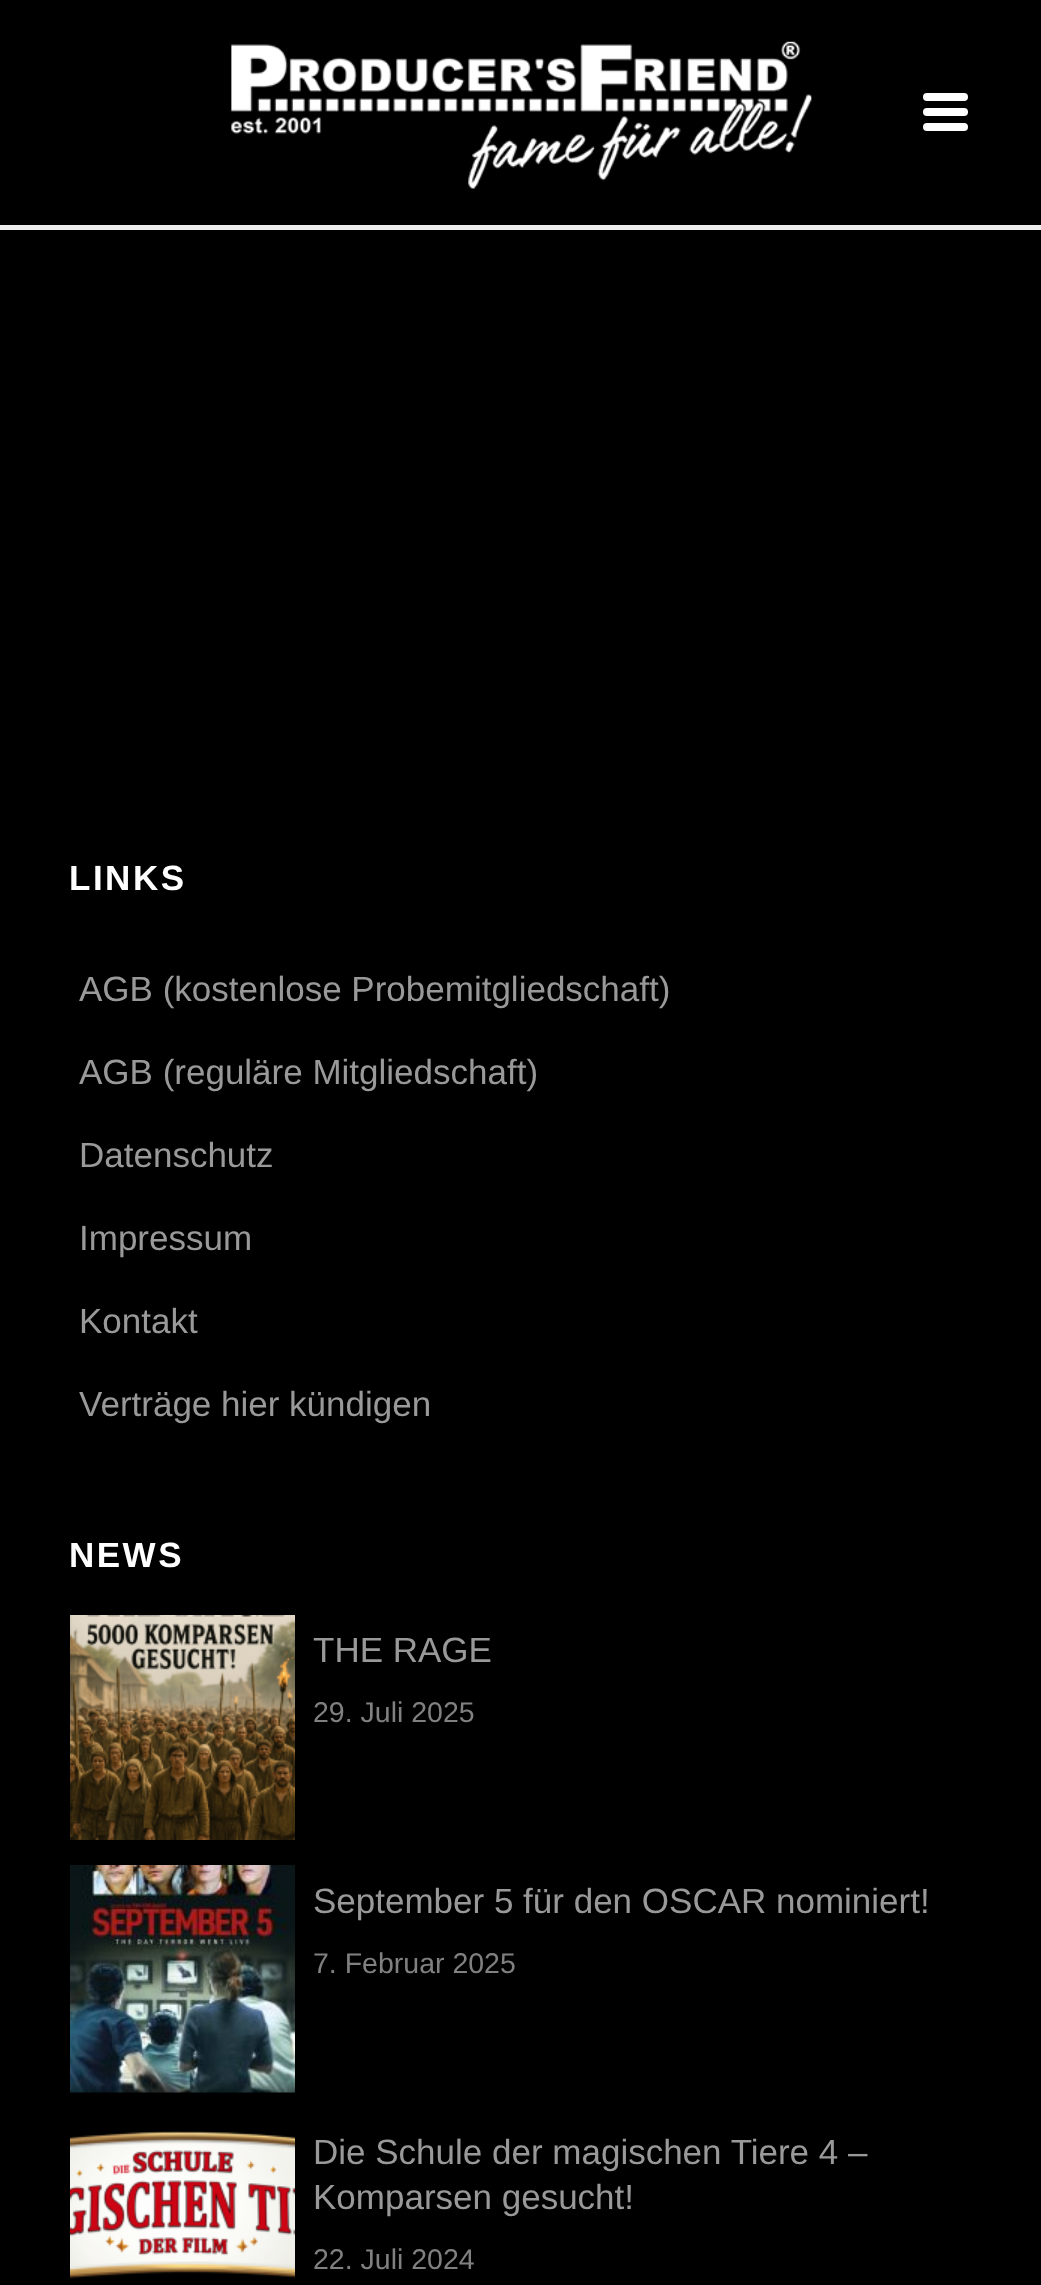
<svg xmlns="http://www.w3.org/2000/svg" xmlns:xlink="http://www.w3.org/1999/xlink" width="1041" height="2285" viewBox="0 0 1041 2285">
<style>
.cls-1{font:bold 35px Liberation Sans;letter-spacing:2.5px;fill:#ffffff}
.cls-2{font:35px Liberation Sans;fill:#999999}
.cls-3{font:28.5px Liberation Sans;fill:#808080}
</style>
<rect width="100%" height="100%" fill="#000000"/>
<rect fill="#ededed" x="0" y="225" width="1041" height="5"/>
<image xlink:href="image0.png" x="231" y="41" width="581" height="148"/>
<rect fill="#ffffff" x="923" y="93" width="45" height="8" rx="4"/>
<rect fill="#ffffff" x="923" y="108" width="45" height="8" rx="4"/>
<rect fill="#ffffff" x="923" y="123" width="45" height="8" rx="4"/>
<image xlink:href="image1.png" x="70" y="1615" width="225" height="225"/>
<image xlink:href="image2.png" x="70" y="1865" width="225" height="228"/>
<image xlink:href="image3.png" x="70" y="2131" width="225" height="148"/>
<text class="cls-1" x="69" y="890">LINKS</text>
<text class="cls-2" x="79" y="1001">AGB (kostenlose Probemitgliedschaft)</text>
<text class="cls-2" x="79" y="1084">AGB (reguläre Mitgliedschaft)</text>
<text class="cls-2" x="79" y="1167">Datenschutz</text>
<text class="cls-2" x="79" y="1250">Impressum</text>
<text class="cls-2" x="79" y="1333">Kontakt</text>
<text class="cls-2" x="79" y="1416">Verträge hier kündigen</text>
<text class="cls-1" x="69" y="1567">NEWS</text>
<text class="cls-2" x="313" y="1662">THE RAGE</text>
<text class="cls-3" x="313" y="1722">29. Juli 2025</text>
<text class="cls-2" x="313" y="1913">September 5 für den OSCAR nominiert!</text>
<text class="cls-3" x="313" y="1973">7. Februar 2025</text>
<text class="cls-2"><tspan x="313" y="2164">Die Schule der magischen Tiere 4 –</tspan><tspan x="313" y="2209">Komparsen gesucht!</tspan></text>
<text class="cls-3" x="313" y="2269">22. Juli 2024</text>
</svg>
